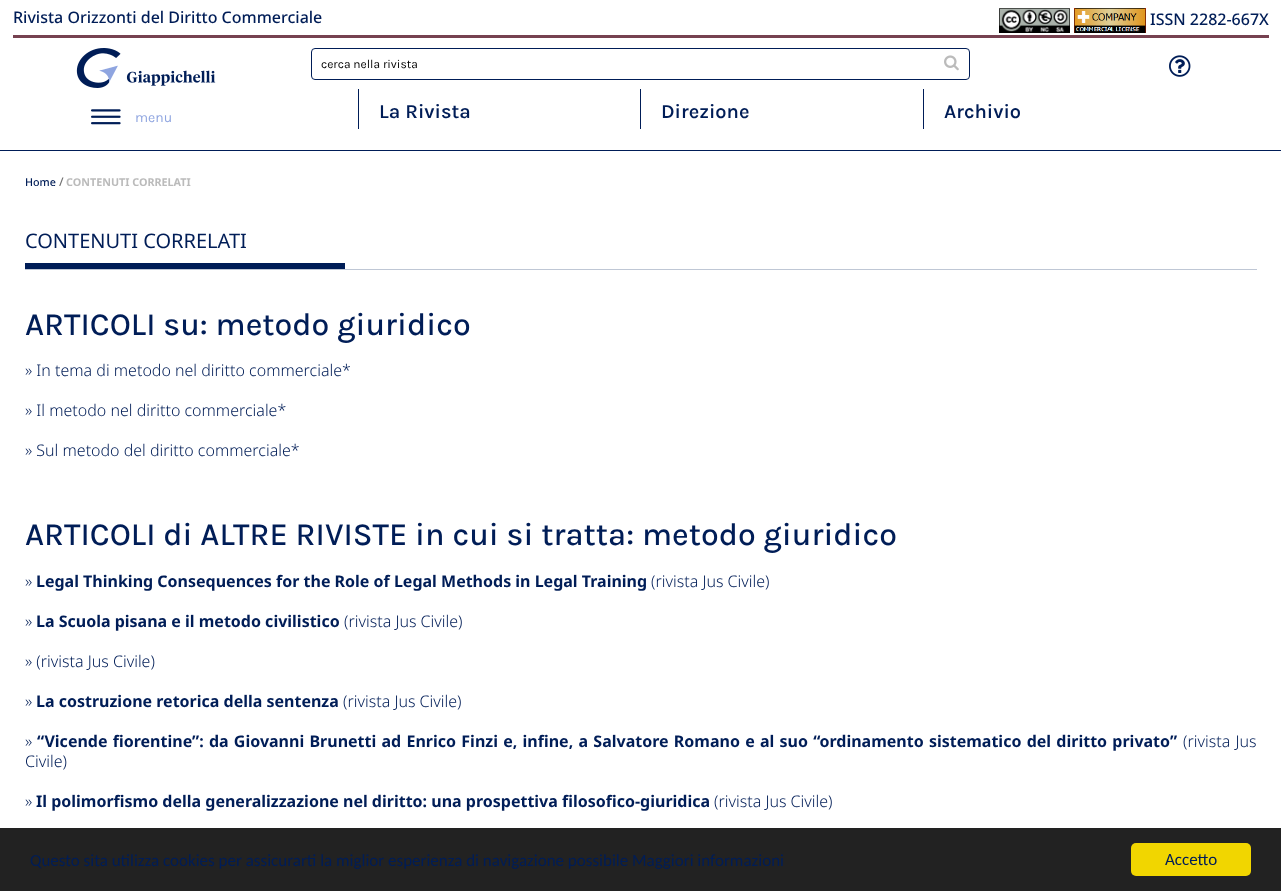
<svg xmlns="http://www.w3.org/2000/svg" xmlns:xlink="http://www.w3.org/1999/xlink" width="1281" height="891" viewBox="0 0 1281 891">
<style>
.cls-1{font:500 16px Noto Sans;fill:#001d57}
.cls-2{font:12px Karla;fill:#000000}
.cls-3{font:14px Karla;fill:#8fa5e0}
.cls-4{font:600 20px Karla;fill:#001d57}
.cls-5{font:500 10.75px Noto Sans;fill:#001d57}
.cls-6{font:500 12px Noto Sans;fill:#707070}
.cls-7{font:bold 10.75px Noto Sans;fill:#bbbbbb}
.cls-8{font:20px Noto Sans;fill:#001d57}
.cls-9{font:500 32px Karla;fill:#001d57}
.cls-10{font:300 16px Noto Sans;fill:#001d57}
.cls-11{font:bold 16px Noto Sans;fill:#001d57}
.cls-12{font:17px Carlito;fill:#001d57}
</style>
<rect width="100%" height="100%" fill="#ffffff"/>
<rect fill="#764150" x="13" y="35" width="1256" height="3"/>
<image xlink:href="image0.png" x="999" y="8" width="71" height="25"/>
<image xlink:href="image1.png" x="1074" y="8" width="72" height="25"/>
<image xlink:href="image2.png" x="76" y="48" width="140" height="40"/>
<rect fill="none" stroke="#001d57" x="311.5" y="48.5" width="658" height="31" rx="3.5"/>
<image xlink:href="image3.png" x="944" y="55" width="15" height="16"/>
<image xlink:href="image4.png" x="1169" y="55" width="22" height="22"/>
<image xlink:href="image5.png" x="91" y="109" width="30" height="16"/>
<rect fill="#001d57" x="358" y="89" width="1" height="40"/>
<rect fill="#001d57" x="640" y="89" width="1" height="40"/>
<rect fill="#001d57" x="923" y="89" width="1" height="40"/>
<rect fill="#001d57" x="0" y="150" width="1281" height="1"/>
<rect fill="#001d57" x="25" y="263" width="320" height="6"/>
<rect fill="#bfc7d5" x="25" y="269" width="1232" height="1"/>
<rect fill="#222222" x="0" y="828" width="1281" height="63"/>
<rect fill="#f1d600" x="1131" y="843" width="120" height="33" rx="5"/>
<text class="cls-1" x="13" y="23">Rivista Orizzonti del Diritto Commerciale</text>
<text class="cls-1" x="1150" y="25">ISSN 2282-667X</text>
<text class="cls-2" x="321" y="68">cerca nella rivista</text>
<text class="cls-3" x="135" y="122">menu</text>
<text class="cls-4" x="379" y="118">La Rivista</text>
<text class="cls-4" x="661" y="118">Direzione</text>
<text class="cls-4" x="944" y="118">Archivio</text>
<text class="cls-5" x="25" y="186">Home</text>
<text class="cls-6" x="59" y="186">/</text>
<text class="cls-7" x="66" y="186">CONTENUTI CORRELATI</text>
<text class="cls-8" x="25" y="248">CONTENUTI CORRELATI</text>
<text class="cls-9" x="25" y="335">ARTICOLI su: metodo giuridico</text>
<text class="cls-10" x="25" y="376">» In tema di metodo nel diritto commerciale*</text>
<text class="cls-10" x="25" y="416">» Il metodo nel diritto commerciale*</text>
<text class="cls-10" x="25" y="456">» Sul metodo del diritto commerciale*</text>
<text class="cls-9" x="25" y="545">ARTICOLI di ALTRE RIVISTE in cui si tratta: metodo giuridico</text>
<text class="cls-10" x="25" y="587">»</text>
<text class="cls-11" x="36" y="587">Legal Thinking Consequences for the Role of Legal Methods in Legal Training</text>
<text class="cls-10" x="651" y="587">(rivista Jus Civile)</text>
<text class="cls-10" x="25" y="627">»</text>
<text class="cls-11" x="36" y="627">La Scuola pisana e il metodo civilistico</text>
<text class="cls-10" x="344" y="627">(rivista Jus Civile)</text>
<text class="cls-10" x="25" y="667">» (rivista Jus Civile)</text>
<text class="cls-10" x="25" y="707">»</text>
<text class="cls-11" x="36" y="707">La costruzione retorica della sentenza</text>
<text class="cls-10" x="343" y="707">(rivista Jus Civile)</text>
<text class="cls-10" x="25" y="747">»</text>
<text class="cls-11" x="37" y="747" word-spacing="1.1">“Vicende fiorentine”: da Giovanni Brunetti ad Enrico Finzi e, infine, a Salvatore Romano e al suo “ordinamento sistematico del diritto privato”</text>
<text class="cls-10" x="1183" y="747" word-spacing="1.1">(rivista Jus</text>
<text class="cls-10" x="25" y="767">Civile)</text>
<text class="cls-10" x="25" y="807">»</text>
<text class="cls-11" x="36" y="807">Il polimorfismo della generalizzazione nel diritto: una prospettiva filosofico-giuridica</text>
<text class="cls-10" x="714" y="807">(rivista Jus Civile)</text>
<text class="cls-12" x="30" y="866">Questo sita utilizza cookies per assicurarti la miglior esperienza di navigazione possibile Maggiori informazioni</text>
<text class="cls-12" x="1165" y="865">Accetto</text>
</svg>
